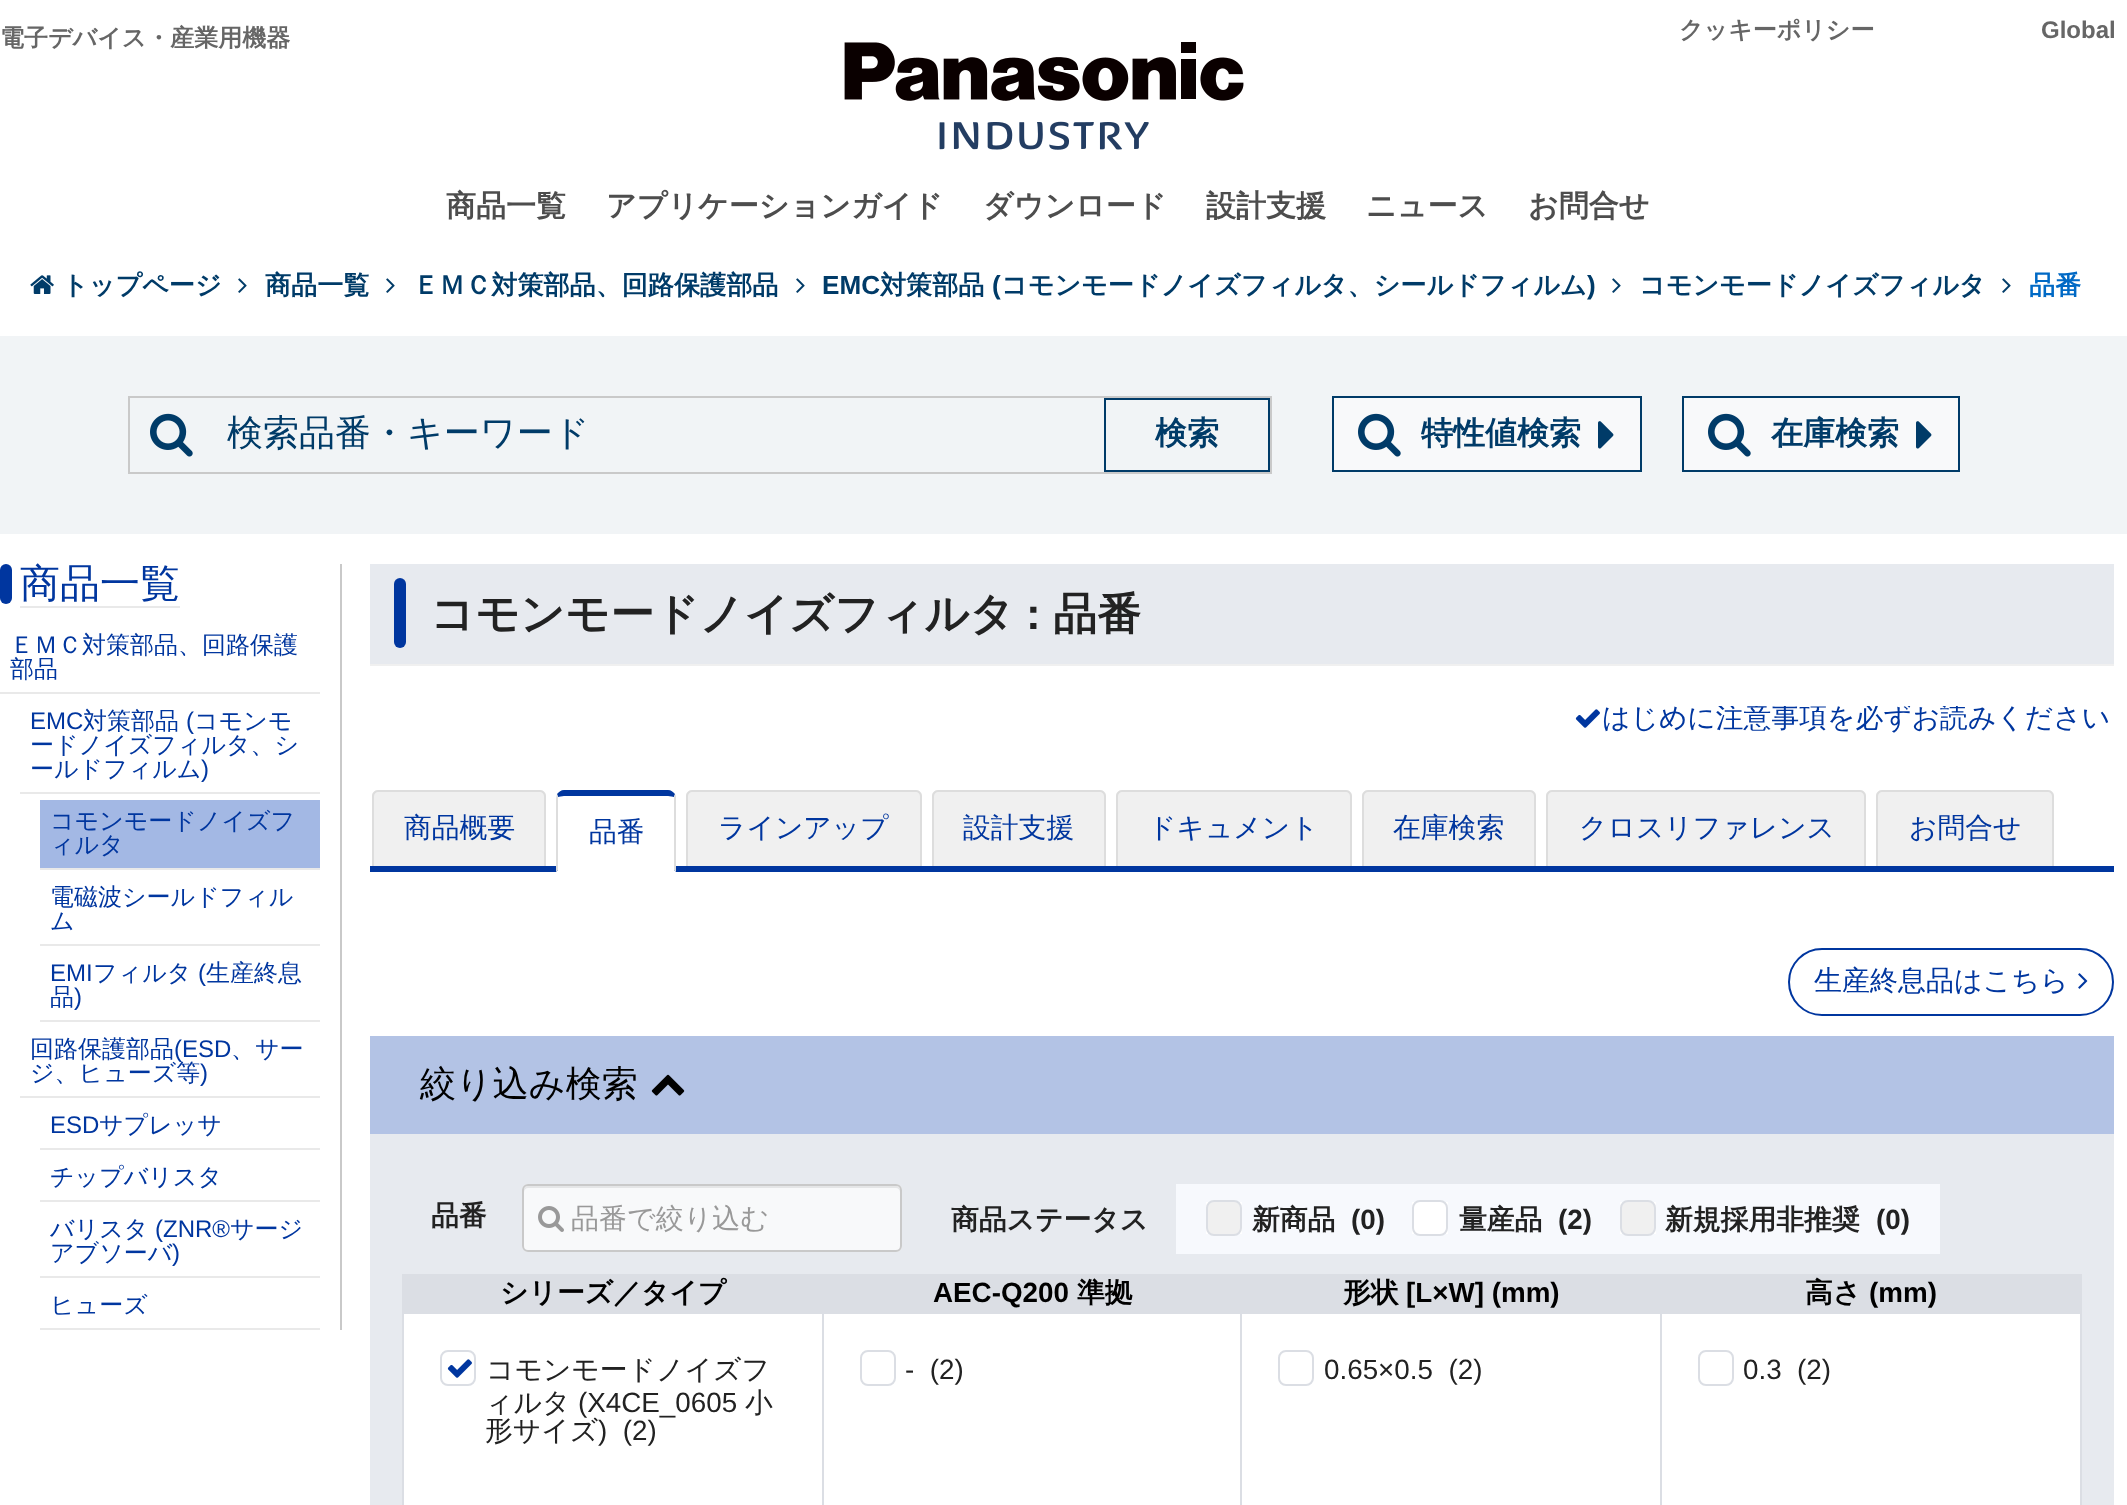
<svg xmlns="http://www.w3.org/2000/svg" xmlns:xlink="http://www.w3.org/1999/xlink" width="2127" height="1505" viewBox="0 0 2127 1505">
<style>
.cls-1{font:bold 24px WenQuanYi Zen Hei;fill:#666666}
.cls-2{font:bold 24px Liberation Sans;fill:#666666}
.cls-3{font:bold 30px WenQuanYi Zen Hei;fill:#4d4d4d}
.cls-4{font:bold 26.1px WenQuanYi Zen Hei;fill:#003b68}
.cls-5{font:bold 26.1px Liberation Sans;fill:#003b68}
.cls-6{font:bold 26.1px WenQuanYi Zen Hei;fill:#0069c5}
.cls-7{font:500 36px WenQuanYi Zen Hei;fill:#003b68}
.cls-8{font:bold 32px WenQuanYi Zen Hei;fill:#003b68}
.cls-9{font:500 40px WenQuanYi Zen Hei;fill:#00369f}
.cls-10{font:500 24px WenQuanYi Zen Hei;fill:#00369f}
.cls-11{font:24px Liberation Sans;fill:#00369f}
.cls-12{font:bold 44px WenQuanYi Zen Hei;fill:#222222}
.cls-13{font:bold 44px Liberation Sans;fill:#222222}
.cls-14{font:500 27.8px WenQuanYi Zen Hei;fill:#00369f}
.cls-15{font:500 28px WenQuanYi Zen Hei;fill:#00369f}
.cls-16{font:500 36px WenQuanYi Zen Hei;fill:#000000}
.cls-17{font:bold 27.8px WenQuanYi Zen Hei;fill:#222222}
.cls-18{font:500 28px WenQuanYi Zen Hei;fill:#999999}
.cls-19{font:bold 27.8px Liberation Sans;fill:#222222}
.cls-20{font:bold 27.8px WenQuanYi Zen Hei;fill:#000000}
.cls-21{font:500 27.8px WenQuanYi Zen Hei;fill:#222222}
.cls-22{font:27.8px Liberation Sans;fill:#222222}
.cls-23{font:bold 27.8px Liberation Sans;fill:#000000}
</style>
<defs>
<clipPath id="clip1"><rect x="370" y="706" width="1744" height="38"/></clipPath>
</defs>
<rect width="100%" height="100%" fill="#ffffff"/>
<image xlink:href="image0.png" x="844" y="42" width="400" height="108"/>
<image xlink:href="image1.png" x="30" y="275" width="24" height="19"/>
<image xlink:href="image2.png" x="238" y="278" width="9" height="15"/>
<image xlink:href="image2.png" x="386" y="278" width="9" height="15"/>
<image xlink:href="image2.png" x="796" y="278" width="9" height="15"/>
<image xlink:href="image2.png" x="1612" y="278" width="9" height="15"/>
<image xlink:href="image2.png" x="2002" y="278" width="9" height="15"/>
<rect fill="#f1f4f6" x="0" y="336" width="2127" height="198"/>
<rect fill="none" stroke="#c9c9c9" stroke-width="2" x="129" y="397" width="1142" height="76"/>
<image xlink:href="image3.png" x="150" y="413" width="43" height="44"/>
<rect fill="none" stroke="#003b68" stroke-width="2" x="1105" y="399" width="164" height="72"/>
<rect fill="#f8f9fa" stroke="#003b68" stroke-width="2" x="1333" y="397" width="308" height="74"/>
<image xlink:href="image4.png" x="1358" y="413" width="43" height="44"/>
<image xlink:href="image5.png" x="1598" y="421" width="16" height="28"/>
<rect fill="#f8f9fa" stroke="#003b68" stroke-width="2" x="1683" y="397" width="276" height="74"/>
<image xlink:href="image4.png" x="1708" y="413" width="43" height="44"/>
<image xlink:href="image5.png" x="1916" y="421" width="16" height="28"/>
<rect fill="#c9c9c9" x="340" y="564" width="2" height="766"/>
<rect fill="#00369f" x="0" y="564" width="12" height="40" rx="6"/>
<rect fill="#e9e9e9" x="20" y="606" width="160" height="2"/>
<rect fill="#e9e9e9" x="0" y="692" width="320" height="2"/>
<rect fill="#e9e9e9" x="20" y="792" width="300" height="2"/>
<rect fill="#a3b8e4" x="40" y="800" width="280" height="68"/>
<rect fill="#e9e9e9" x="40" y="868" width="280" height="2"/>
<rect fill="#e9e9e9" x="40" y="944" width="280" height="2"/>
<rect fill="#e9e9e9" x="40" y="1020" width="280" height="2"/>
<rect fill="#e9e9e9" x="20" y="1096" width="300" height="2"/>
<rect fill="#e9e9e9" x="40" y="1148" width="280" height="2"/>
<rect fill="#e9e9e9" x="40" y="1200" width="280" height="2"/>
<rect fill="#e9e9e9" x="40" y="1276" width="280" height="2"/>
<rect fill="#e9e9e9" x="40" y="1328" width="280" height="2"/>
<rect fill="#e7eaef" x="370" y="564" width="1744" height="100"/>
<rect fill="#f0f0f0" x="370" y="664" width="1744" height="2"/>
<rect fill="#00369f" x="394" y="578" width="12" height="70" rx="6"/>
<image xlink:href="image6.png" x="1575" y="709" width="25" height="19"/>
<rect fill="#00369f" x="370" y="866" width="1744" height="6"/>
<path fill="#f0f0f0" d="M378 790H540C543.5 790 546 792.5 546 796V866H372V796C372 792.5 374.5 790 378 790Z"/>
<path fill="#dddddd" fill-rule="evenodd" d="M378 790H540C543 790 546 793 546 796V866H372V796C372 793 375 790 378 790ZM378 792H540C542 792 544 794 544 796V866H374V796C374 794 376 792 378 792Z"/>
<path fill="#ffffff" d="M564 796H668C671 796 674 797 674 798V870H558V798C558 797 561 796 564 796Z"/>
<path fill="#00369f" d="M564 790C561 790 559 792 557 794L558 797C559 797 562 796 564 796H668C670 796 673 797 674 797L675 794C673 792 671 790 668 790Z"/>
<path fill="#dddddd" d="M676 872V798C676 797 676 795 675 794L674 797V798V870Z"/>
<path fill="#ffffff" d="M676 872L674 870H558L556 872Z"/>
<path fill="#dddddd" d="M556 872L558 870V798V797L557 794L556 798Z"/>
<path fill="#f0f0f0" d="M692 790H916C919.5 790 922 792.5 922 796V866H686V796C686 792.5 688.5 790 692 790Z"/>
<path fill="#dddddd" fill-rule="evenodd" d="M692 790H916C919 790 922 793 922 796V866H686V796C686 793 689 790 692 790ZM692 792H916C918 792 920 794 920 796V866H688V796C688 794 690 792 692 792Z"/>
<path fill="#f0f0f0" d="M938 790H1100C1103.5 790 1106 792.5 1106 796V866H932V796C932 792.5 934.5 790 938 790Z"/>
<path fill="#dddddd" fill-rule="evenodd" d="M938 790H1100C1103 790 1106 793 1106 796V866H932V796C932 793 935 790 938 790ZM938 792H1100C1102 792 1104 794 1104 796V866H934V796C934 794 936 792 938 792Z"/>
<path fill="#f0f0f0" d="M1122 790H1346C1349.5 790 1352 792.5 1352 796V866H1116V796C1116 792.5 1118.5 790 1122 790Z"/>
<path fill="#dddddd" fill-rule="evenodd" d="M1122 790H1346C1349 790 1352 793 1352 796V866H1116V796C1116 793 1119 790 1122 790ZM1122 792H1346C1348 792 1350 794 1350 796V866H1118V796C1118 794 1120 792 1122 792Z"/>
<path fill="#f0f0f0" d="M1368 790H1530C1533.5 790 1536 792.5 1536 796V866H1362V796C1362 792.5 1364.5 790 1368 790Z"/>
<path fill="#dddddd" fill-rule="evenodd" d="M1368 790H1530C1533 790 1536 793 1536 796V866H1362V796C1362 793 1365 790 1368 790ZM1368 792H1530C1532 792 1534 794 1534 796V866H1364V796C1364 794 1366 792 1368 792Z"/>
<path fill="#f0f0f0" d="M1552 790H1860C1863.5 790 1866 792.5 1866 796V866H1546V796C1546 792.5 1548.5 790 1552 790Z"/>
<path fill="#dddddd" fill-rule="evenodd" d="M1552 790H1860C1863 790 1866 793 1866 796V866H1546V796C1546 793 1549 790 1552 790ZM1552 792H1860C1862 792 1864 794 1864 796V866H1548V796C1548 794 1550 792 1552 792Z"/>
<path fill="#f0f0f0" d="M1882 790H2048C2051.5 790 2054 792.5 2054 796V866H1876V796C1876 792.5 1878.5 790 1882 790Z"/>
<path fill="#dddddd" fill-rule="evenodd" d="M1882 790H2048C2051 790 2054 793 2054 796V866H1876V796C1876 793 1879 790 1882 790ZM1882 792H2048C2050 792 2052 794 2052 796V866H1878V796C1878 794 1880 792 1882 792Z"/>
<rect fill="none" stroke="#00369f" stroke-width="2" x="1789" y="949" width="324" height="66" rx="33"/>
<image xlink:href="image7.png" x="2078" y="973" width="10" height="16"/>
<rect fill="#e7eaef" x="370" y="1134" width="1744" height="371"/>
<rect fill="#b3c3e5" x="370" y="1036" width="1744" height="98"/>
<image xlink:href="image8.png" x="651" y="1074" width="34" height="22"/>
<rect fill="#f8f9fa" x="522" y="1184" width="380" height="68" rx="6"/>
<path fill="#e5e6e7" d="M528 1188H896C898 1188 900 1190 900 1192V1190C900 1188 898 1186 896 1186H528C526 1186 524 1188 524 1190V1192C524 1190 526 1188 528 1188Z"/>
<rect fill="none" stroke="#c9c9c9" stroke-width="2" x="523" y="1185" width="378" height="66" rx="5"/>
<image xlink:href="image9.png" x="538" y="1206" width="26" height="26"/>
<rect fill="#f7f9fd" x="1176" y="1184" width="764" height="70"/>
<rect fill="#ffffff" x="1206" y="1202" width="36" height="32"/>
<rect fill="#f0f0f0" stroke="#dbdee4" stroke-width="2" x="1207" y="1201" width="34" height="34" rx="7"/>
<rect fill="#ffffff" x="1412" y="1202" width="36" height="32"/>
<rect fill="none" stroke="#dbdee4" stroke-width="2" x="1413" y="1201" width="34" height="34" rx="7"/>
<rect fill="#ffffff" x="1620" y="1202" width="36" height="32"/>
<rect fill="#f0f0f0" stroke="#dbdee4" stroke-width="2" x="1621" y="1201" width="34" height="34" rx="7"/>
<rect fill="#dbdee4" x="402" y="1274" width="1680" height="2"/>
<rect fill="#dbdee4" x="402" y="1274" width="2" height="231"/>
<rect fill="#dbdee4" x="822" y="1276" width="2" height="229"/>
<rect fill="#dbdee4" x="404" y="1276" width="418" height="38"/>
<rect fill="#ffffff" x="404" y="1314" width="418" height="191"/>
<rect fill="none" stroke="#dbdee4" stroke-width="2" x="441" y="1351" width="34" height="34" rx="7"/>
<image xlink:href="image6.png" x="447" y="1359" width="25" height="19"/>
<rect fill="#dbdee4" x="1240" y="1276" width="2" height="229"/>
<rect fill="#dbdee4" x="824" y="1276" width="416" height="38"/>
<rect fill="#ffffff" x="824" y="1314" width="416" height="191"/>
<rect fill="none" stroke="#dbdee4" stroke-width="2" x="861" y="1351" width="34" height="34" rx="7"/>
<rect fill="#dbdee4" x="1660" y="1276" width="2" height="229"/>
<rect fill="#dbdee4" x="1242" y="1276" width="418" height="38"/>
<rect fill="#ffffff" x="1242" y="1314" width="418" height="191"/>
<rect fill="none" stroke="#dbdee4" stroke-width="2" x="1279" y="1351" width="34" height="34" rx="7"/>
<rect fill="#dbdee4" x="2080" y="1276" width="2" height="229"/>
<rect fill="#dbdee4" x="1662" y="1276" width="418" height="38"/>
<rect fill="#ffffff" x="1662" y="1314" width="418" height="191"/>
<rect fill="none" stroke="#dbdee4" stroke-width="2" x="1699" y="1351" width="34" height="34" rx="7"/>
<text class="cls-1" x="0" y="46">電子デバイス・産業用機器</text>
<text class="cls-1" x="1679" y="38">クッキーポリシー</text>
<text class="cls-2" x="2041" y="38">Global</text>
<text class="cls-3" x="446" y="216">商品一覧</text>
<text class="cls-3" x="606" y="216">アプリケーションガイド</text>
<text class="cls-3" x="983" y="216">ダウンロード</text>
<text class="cls-3" x="1206" y="216">設計支援</text>
<text class="cls-3" x="1366" y="216">ニュース</text>
<text class="cls-3" x="1528" y="216">お問合せ</text>
<text class="cls-4" x="62" y="294">トップページ</text>
<text class="cls-4" x="265" y="294">商品一覧</text>
<text class="cls-4" x="413" y="294">ＥＭＣ対策部品、回路保護部品</text>
<text class="cls-5" x="822" y="294">EMC</text>
<text class="cls-4" x="880" y="294">対策部品</text>
<text class="cls-5" x="992" y="294">(</text>
<text class="cls-4" x="1001" y="294">コモンモードノイズフィルタ、シールドフィルム</text>
<text class="cls-5" x="1587" y="294">)</text>
<text class="cls-4" x="1639" y="294">コモンモードノイズフィルタ</text>
<text class="cls-6" x="2029" y="294">品番</text>
<text class="cls-7" x="227" y="445">検索品番・キーワード</text>
<text class="cls-8" x="1155" y="444">検索</text>
<text class="cls-8" x="1421" y="444">特性値検索</text>
<text class="cls-8" x="1771" y="444">在庫検索</text>
<text class="cls-9" x="20" y="597">商品一覧</text>
<text class="cls-10"><tspan x="10" y="653">ＥＭＣ対策部品、回路保護</tspan><tspan x="10" y="677">部品</tspan></text>
<text class="cls-11" x="30" y="729">EMC</text>
<text class="cls-10" x="83" y="729">対策部品</text>
<text class="cls-11" x="186" y="729">(</text>
<text class="cls-10" x="194" y="729">コモンモ</text>
<text class="cls-10"><tspan x="30" y="753">ードノイズフィルタ、シ</tspan><tspan x="30" y="777">ールドフィルム</tspan></text>
<text class="cls-11" x="201" y="777">)</text>
<text class="cls-10"><tspan x="50" y="829">コモンモードノイズフ</tspan><tspan x="50" y="853">ィルタ</tspan></text>
<text class="cls-10"><tspan x="50" y="905">電磁波シールドフィル</tspan><tspan x="50" y="929">ム</tspan></text>
<text class="cls-11" x="50" y="981">EMI</text>
<text class="cls-10" x="93" y="981">フィルタ</text>
<text class="cls-11" x="198" y="981">(</text>
<text class="cls-10" x="206" y="981">生産終息</text>
<text class="cls-10" x="50" y="1005">品</text>
<text class="cls-11" x="74" y="1005">)</text>
<text class="cls-10" x="30" y="1057">回路保護部品</text>
<text class="cls-11" x="174" y="1057">(ESD</text>
<text class="cls-10" x="231" y="1057">、サー</text>
<text class="cls-10" x="30" y="1081">ジ、ヒューズ等</text>
<text class="cls-11" x="200" y="1081">)</text>
<text class="cls-11" x="50" y="1133">ESD</text>
<text class="cls-10" x="99" y="1133">サプレッサ</text>
<text class="cls-10" x="50" y="1185">チップバリスタ</text>
<text class="cls-10" x="50" y="1237">バリスタ</text>
<text class="cls-11" x="155" y="1237">(ZNR®</text>
<text class="cls-10" x="230" y="1237">サージ</text>
<text class="cls-10" x="50" y="1261">アブソーバ</text>
<text class="cls-11" x="172" y="1261">)</text>
<text class="cls-10" x="50" y="1313">ヒューズ</text>
<text class="cls-12" x="430" y="629">コモンモードノイズフィルタ</text>
<text class="cls-13" x="1026" y="629">:</text>
<text class="cls-12" x="1053" y="629">品番</text>
<g clip-path="url(#clip1)">
<text class="cls-14" x="1602" y="727">はじめに注意事項を必ずお読みください</text>
</g>
<text class="cls-14" x="404" y="837">商品概要</text>
<text class="cls-14" x="589" y="841">品番</text>
<text class="cls-14" x="718" y="837">ラインアップ</text>
<text class="cls-14" x="963" y="837">設計支援</text>
<text class="cls-14" x="1148" y="837">ドキュメント</text>
<text class="cls-14" x="1393" y="837">在庫検索</text>
<text class="cls-14" x="1579" y="837">クロスリファレンス</text>
<text class="cls-14" x="1909" y="837">お問合せ</text>
<text class="cls-15" x="1814" y="990">生産終息品はこちら</text>
<text class="cls-16" x="420" y="1096">絞り込み検索</text>
<text class="cls-17" x="431" y="1225">品番</text>
<text class="cls-18" x="571" y="1228">品番で絞り込む</text>
<text class="cls-17" x="951" y="1229">商品ステータス</text>
<text class="cls-17" x="1252" y="1229">新商品</text>
<text class="cls-19" x="1351" y="1229">(0)</text>
<text class="cls-17" x="1459" y="1229">量産品</text>
<text class="cls-19" x="1558" y="1229">(2)</text>
<text class="cls-17" x="1665" y="1229">新規採用非推奨</text>
<text class="cls-19" x="1876" y="1229">(0)</text>
<text class="cls-20" x="500" y="1302">シリーズ／タイプ</text>
<text class="cls-21" x="486" y="1379">コモンモードノイズフ</text>
<text class="cls-21" x="485" y="1412">ィルタ</text>
<text class="cls-22" x="578" y="1412">(X4CE_0605</text>
<text class="cls-21" x="745" y="1412">小</text>
<text class="cls-21" x="485" y="1440">形サイズ</text>
<text class="cls-22" xml:space="preserve" x="598" y="1440">)  (2)</text>
<text class="cls-23" x="933" y="1302">AEC-Q200</text>
<text class="cls-20" x="1077" y="1302">準拠</text>
<text class="cls-22" xml:space="preserve" x="905" y="1379">-  (2)</text>
<text class="cls-20" x="1343" y="1302">形状</text>
<text class="cls-23" x="1406" y="1302">[L×W] (mm)</text>
<text class="cls-22" xml:space="preserve" x="1324" y="1379">0.65×0.5  (2)</text>
<text class="cls-20" x="1805" y="1302">高さ</text>
<text class="cls-23" x="1869" y="1302">(mm)</text>
<text class="cls-22" xml:space="preserve" x="1743" y="1379">0.3  (2)</text>
</svg>
